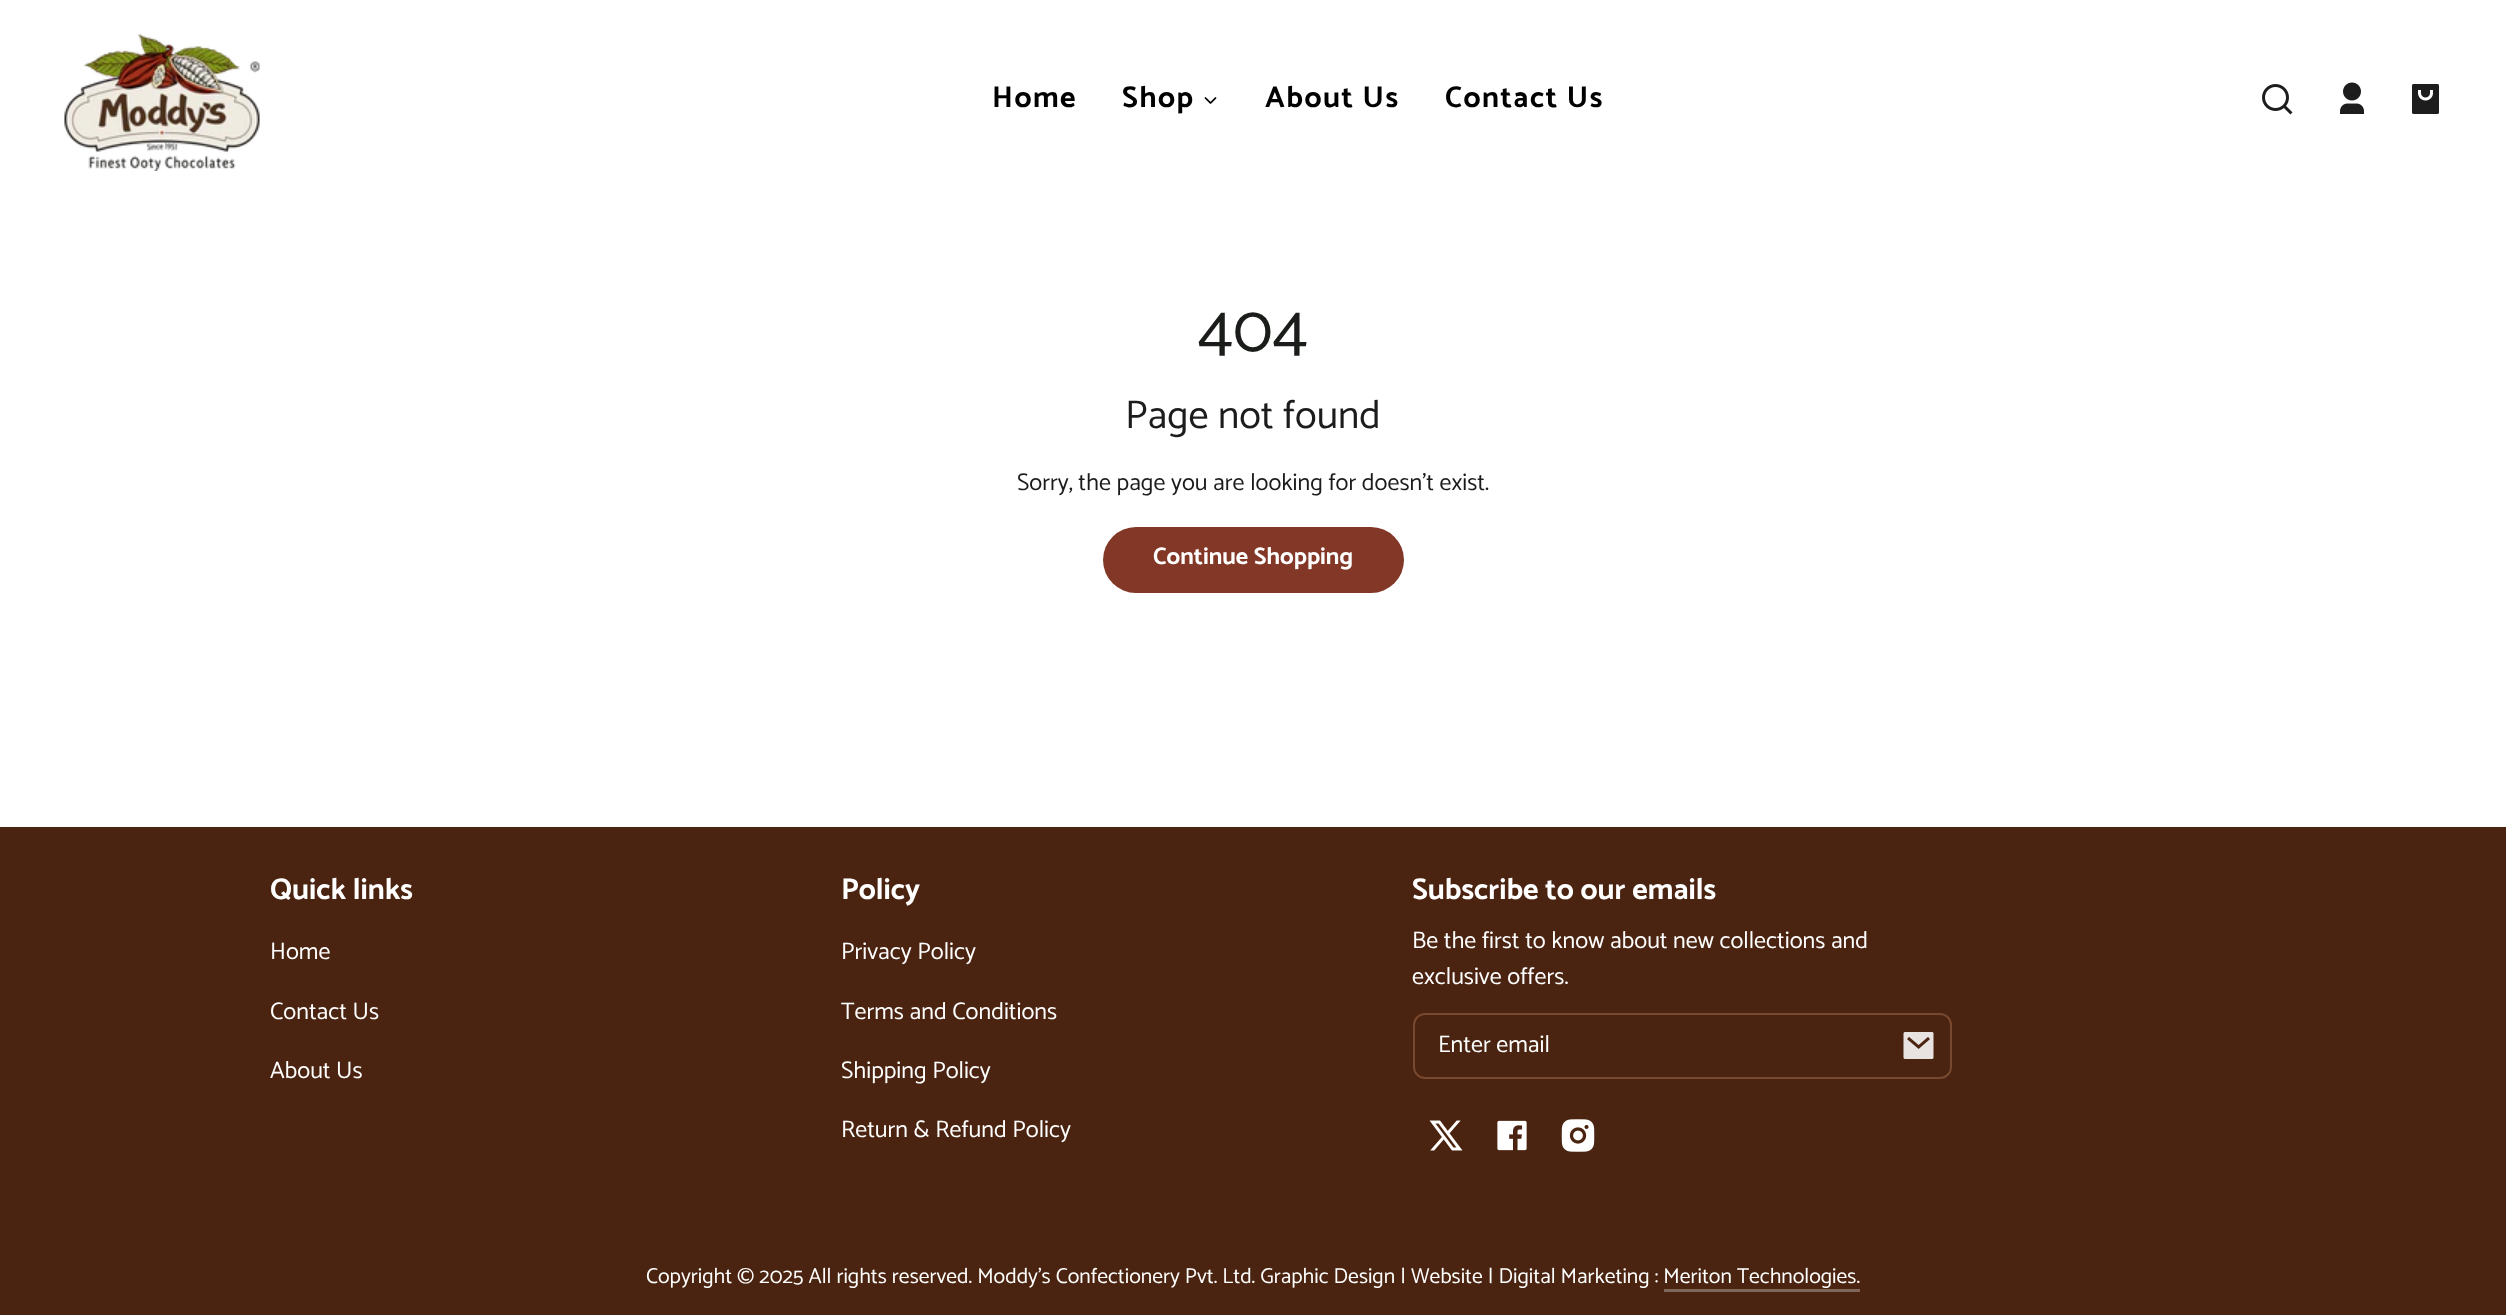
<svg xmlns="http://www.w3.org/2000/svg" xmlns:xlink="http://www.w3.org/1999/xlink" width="2506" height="1315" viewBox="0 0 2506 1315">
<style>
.cls-1{font:bold 30px Catamaran;letter-spacing:1.5px;fill:#000000}
.cls-2{font:100 67px Catamaran;fill:#1b1d1b}
.cls-3{font:100 40.25px Catamaran;fill:#1b1d1b}
.cls-4{font:100 24px Catamaran;fill:#1b1d1b}
.cls-5{font:bold 24px Catamaran;fill:#ffffff}
.cls-6{font:bold 30px Catamaran;fill:#ffffff}
.cls-7{font:100 24px Catamaran;fill:#ffffff}
.cls-8{font:100 21.6px Catamaran;fill:#ffffff}
</style>
<rect width="100%" height="100%" fill="#ffffff"/>
<image xlink:href="image0.png" x="64" y="34" width="196" height="137"/>
<image xlink:href="image1.png" x="1204" y="97" width="13" height="7"/>
<image xlink:href="image2.png" x="2262" y="84" width="31" height="31"/>
<image xlink:href="image3.png" x="2340" y="82" width="24" height="32"/>
<image xlink:href="image4.png" x="2412" y="84" width="27" height="30"/>
<rect fill="#823727" x="1103" y="527" width="301" height="66" rx="33"/>
<rect fill="#4a2410" x="0" y="827" width="2506" height="488"/>
<rect fill="none" stroke="#78482f" stroke-width="2" x="1414" y="1014" width="537" height="64" rx="11"/>
<image xlink:href="image5.png" x="1903" y="1032" width="31" height="27"/>
<image xlink:href="image6.png" x="1429" y="1120" width="34" height="31"/>
<image xlink:href="image7.png" x="1497" y="1120" width="30" height="31"/>
<image xlink:href="image8.png" x="1561" y="1119" width="34" height="33"/>
<rect fill="#806658" x="1664" y="1289" width="196" height="3"/>
<text class="cls-1" x="992" y="107">Home</text>
<text class="cls-1" x="1122" y="107">Shop</text>
<text class="cls-1" x="1265" y="107">About Us</text>
<text class="cls-1" x="1445" y="107">Contact Us</text>
<text class="cls-2" x="1198" y="351">404</text>
<text class="cls-3" x="1125" y="428">Page not found</text>
<text class="cls-4" x="1017" y="490">Sorry, the page you are looking for doesn't exist.</text>
<text class="cls-5" x="1153" y="564">Continue Shopping</text>
<text class="cls-6" x="270" y="899">Quick links</text>
<text class="cls-7" x="270" y="959">Home</text>
<text class="cls-7" x="270" y="1019">Contact Us</text>
<text class="cls-7" x="270" y="1078">About Us</text>
<text class="cls-6" x="841" y="899">Policy</text>
<text class="cls-7" x="841" y="959">Privacy Policy</text>
<text class="cls-7" x="841" y="1019">Terms and Conditions</text>
<text class="cls-7" x="841" y="1078">Shipping Policy</text>
<text class="cls-7" x="841" y="1137">Return &amp; Refund Policy</text>
<text class="cls-6" x="1412" y="899">Subscribe to our emails</text>
<text class="cls-7"><tspan x="1412" y="948">Be the first to know about new collections and</tspan><tspan x="1412" y="984">exclusive offers.</tspan></text>
<text class="cls-7" x="1438" y="1052">Enter email</text>
<text class="cls-8" x="646" y="1283">Copyright © 2025 All rights reserved. Moddy's Confectionery Pvt. Ltd. Graphic Design | Website | Digital Marketing : Meriton Technologies.</text>
</svg>
